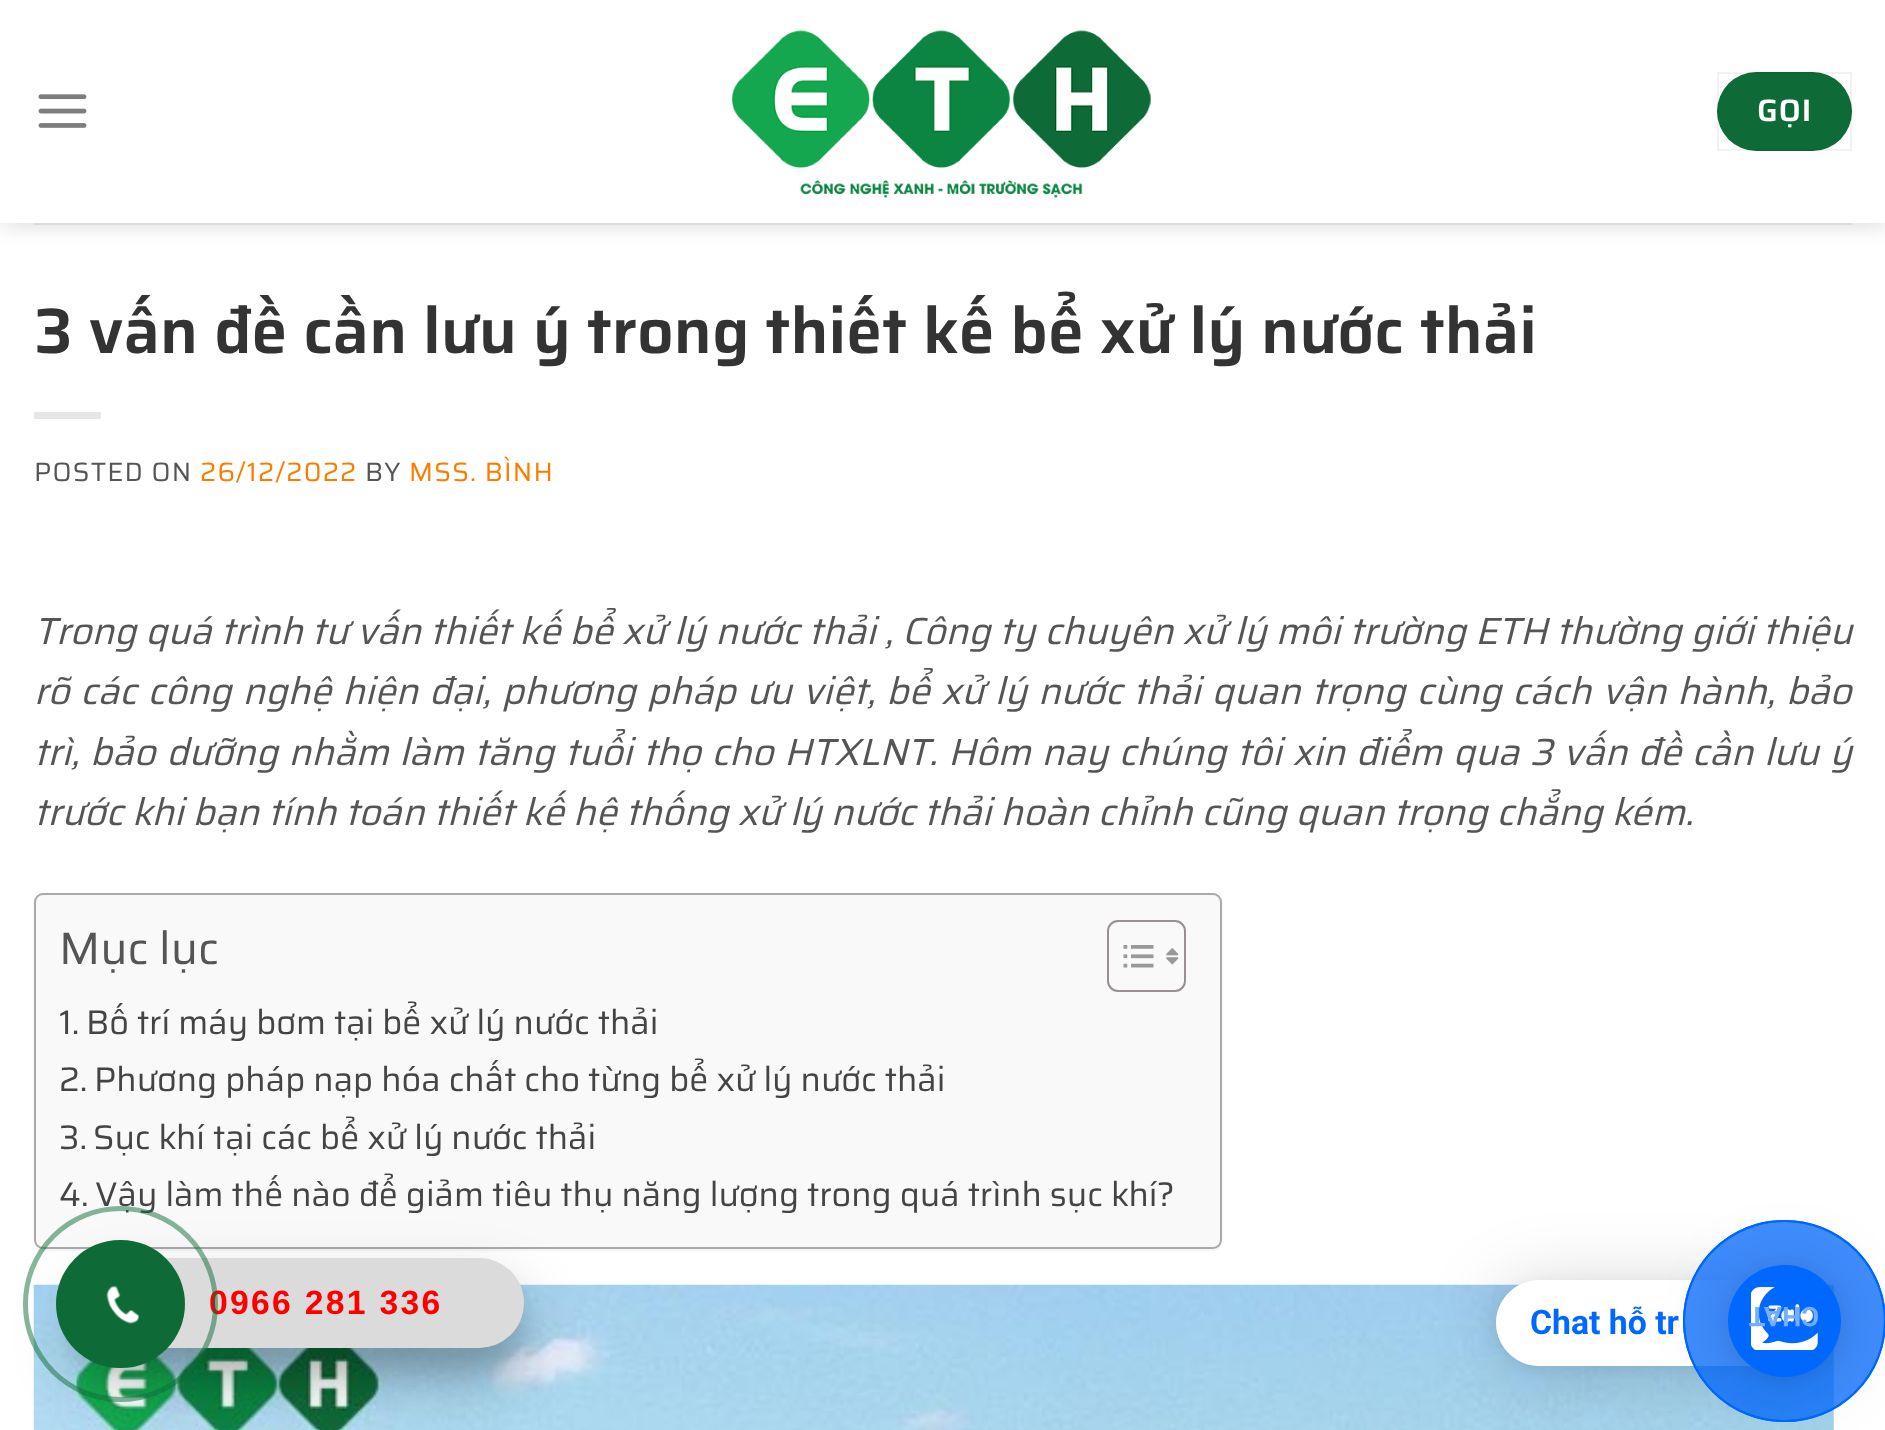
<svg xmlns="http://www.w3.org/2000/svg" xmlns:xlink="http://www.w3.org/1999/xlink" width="1885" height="1430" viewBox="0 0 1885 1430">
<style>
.cls-1{font:600 31px Saira;letter-spacing:1px;fill:#ffffff}
.cls-2{font:600 64.25px Saira;fill:#333333}
.cls-3{font:26.5px Saira;letter-spacing:1.25px;fill:#555555}
.cls-4{font:26.5px Saira;letter-spacing:1.25px;fill:#fb7d00}
.cls-5{font:italic 37.8px Saira;fill:#555555}
.cls-6{font:45.5px Saira;fill:#555555}
.cls-7{font:34.1px Saira;fill:#444444}
.cls-8{font:bold 33.75px Liberation Sans;letter-spacing:2.25px;fill:#ff0000}
.cls-9{font:bold 33.75px Roboto;fill:#0068ff}
.cls-10{font:bold 27px Roboto;fill:#76aeff}
</style>
<defs>
<clipPath id="clip1"><path d="M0 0H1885V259H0ZM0 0H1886V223H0Z" clip-rule="evenodd"/></clipPath>
</defs>
<rect width="100%" height="100%" fill="#ffffff"/>
<g clip-path="url(#clip1)">
<rect fill="#000000" fill-opacity="0.15" filter="blur(11px)" x="2" y="2" width="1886" height="223"/>
</g>
<image xlink:href="image0.png" x="38" y="94" width="49" height="34"/>
<image xlink:href="image1.png" x="731" y="30" width="420" height="168"/>
<rect fill="#0e6b38" x="1717" y="72" width="135" height="79" rx="39.5"/>
<rect fill="none" stroke="#000000" stroke-opacity="0.05" stroke-width="2" x="1718" y="73" width="133" height="77"/>
<rect fill="#dcdcdc" x="34" y="223" width="1818" height="2"/>
<rect fill="#ffffff" fill-opacity="0.9" x="2" y="222" width="1883" height="1"/>
<rect fill="#e6e6e6" x="34" y="412" width="67" height="7"/>
<rect fill="#000000" fill-opacity="0.05" filter="blur(1px)" x="34" y="896" width="1188" height="355" rx="9"/>
<rect fill="#f9f9f9" stroke="#aaaaaa" stroke-width="2" x="35" y="894" width="1186" height="354" rx="8"/>
<rect fill="none" stroke="#999191" stroke-width="2" x="1108" y="921" width="77" height="70" rx="10"/>
<image xlink:href="image2.png" x="1123" y="945" width="31" height="23"/>
<image xlink:href="image3.png" x="1166" y="948" width="13" height="17"/>
<image xlink:href="image4.png" x="33" y="1284" width="1801" height="146"/>
<rect fill="#000000" fill-opacity="0.1" filter="blur(11px)" x="74" y="1280" width="450" height="90" rx="45"/>
<rect fill="#000000" fill-opacity="0.25" filter="blur(31.5px)" x="74" y="1289" width="450" height="90" rx="45"/>
<rect fill="#dbdbdb" x="74" y="1258" width="450" height="90" rx="45"/>
<rect fill="#000000" fill-opacity="0.16" filter="blur(36px)" x="1496" y="1285" width="259" height="85" rx="42.5"/>
<rect fill="#000000" fill-opacity="0.06" filter="blur(7px)" x="1496" y="1283" width="259" height="85" rx="42.5"/>
<path fill="#ffffff" d="M1539 1280H1755V1366H1539C1515.5 1366 1496 1346.5 1496 1323C1496 1299.5 1515.5 1280 1539 1280Z"/>
<rect fill="#0068ff" fill-opacity="0.5" stroke="#0068ff" stroke-width="2" x="1684" y="1221" width="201" height="200" rx="100"/>
<rect fill="#0068ff" fill-opacity="0.5" stroke="#0068ff" stroke-width="2" x="1684" y="1221" width="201" height="200" rx="100"/>
<rect fill="#000000" fill-opacity="0.16" filter="blur(36px)" x="1728" y="1269" width="113" height="113" rx="56.5"/>
<rect fill="#000000" fill-opacity="0.06" filter="blur(7px)" x="1728" y="1267" width="113" height="112" rx="56"/>
<rect fill="#0068ff" x="1728" y="1265" width="113" height="112" rx="56"/>
<image xlink:href="image6.png" x="1751" y="1287" width="67" height="63"/>
<text class="cls-1" x="1757" y="121">GỌI</text>
<text class="cls-2" x="34" y="353">3 vấn đề cần lưu ý trong thiết kế bể xử lý nước thải</text>
<text class="cls-3" x="34" y="481">POSTED ON</text>
<text class="cls-4" x="200" y="481">26/12/2022</text>
<text class="cls-3" x="365" y="481">BY</text>
<text class="cls-4" x="409" y="481">MSS. BÌNH</text>
<text class="cls-5"><tspan x="34" y="644">Trong quá trình tư vấn thiết kế bể xử lý nước thải , Công ty chuyên xử lý môi trường ETH thường giới thiệu</tspan><tspan x="34" y="704" word-spacing="2">rõ các công nghệ hiện đại, phương pháp ưu việt, bể xử lý nước thải quan trọng cùng cách vận hành, bảo</tspan><tspan x="34" y="765" word-spacing="1.7">trì, bảo dưỡng nhằm làm tăng tuổi thọ cho HTXLNT. Hôm nay chúng tôi xin điểm qua 3 vấn đề cần lưu ý</tspan><tspan x="34" y="825">trước khi bạn tính toán thiết kế hệ thống xử lý nước thải hoàn chỉnh cũng quan trọng chẳng kém.</tspan></text>
<text class="cls-6" x="59" y="964">Mục lục</text>
<text class="cls-7" x="59" y="1034">1.</text>
<text class="cls-7" x="86" y="1034">Bố trí máy bơm tại bể xử lý nước thải</text>
<text class="cls-7" x="59" y="1091">2.</text>
<text class="cls-7" x="94" y="1091">Phương pháp nạp hóa chất cho từng bể xử lý nước thải</text>
<text class="cls-7" x="59" y="1149">3.</text>
<text class="cls-7" x="93" y="1149">Sục khí tại các bể xử lý nước thải</text>
<text class="cls-7" x="59" y="1206">4.</text>
<text class="cls-7" x="95" y="1206">Vậy làm thế nào để giảm tiêu thụ năng lượng trong quá trình sục khí?</text>
<text class="cls-8" x="209" y="1314">0966 281 336</text>
<rect fill="none" stroke="#0e6b38" stroke-opacity="0.5" stroke-width="5" x="25.5" y="1208.5" width="190" height="191" rx="95"/>
<rect fill="#0e6b38" x="56" y="1240" width="129" height="128" rx="64"/>
<image xlink:href="image5.png" x="106" y="1285" width="34" height="39"/>
<text class="cls-9" x="1530" y="1334">Chat hỗ tr</text>
<text class="cls-10" x="1819" y="1307" transform="rotate(180 1819 1307)">CHAT</text>
</svg>
